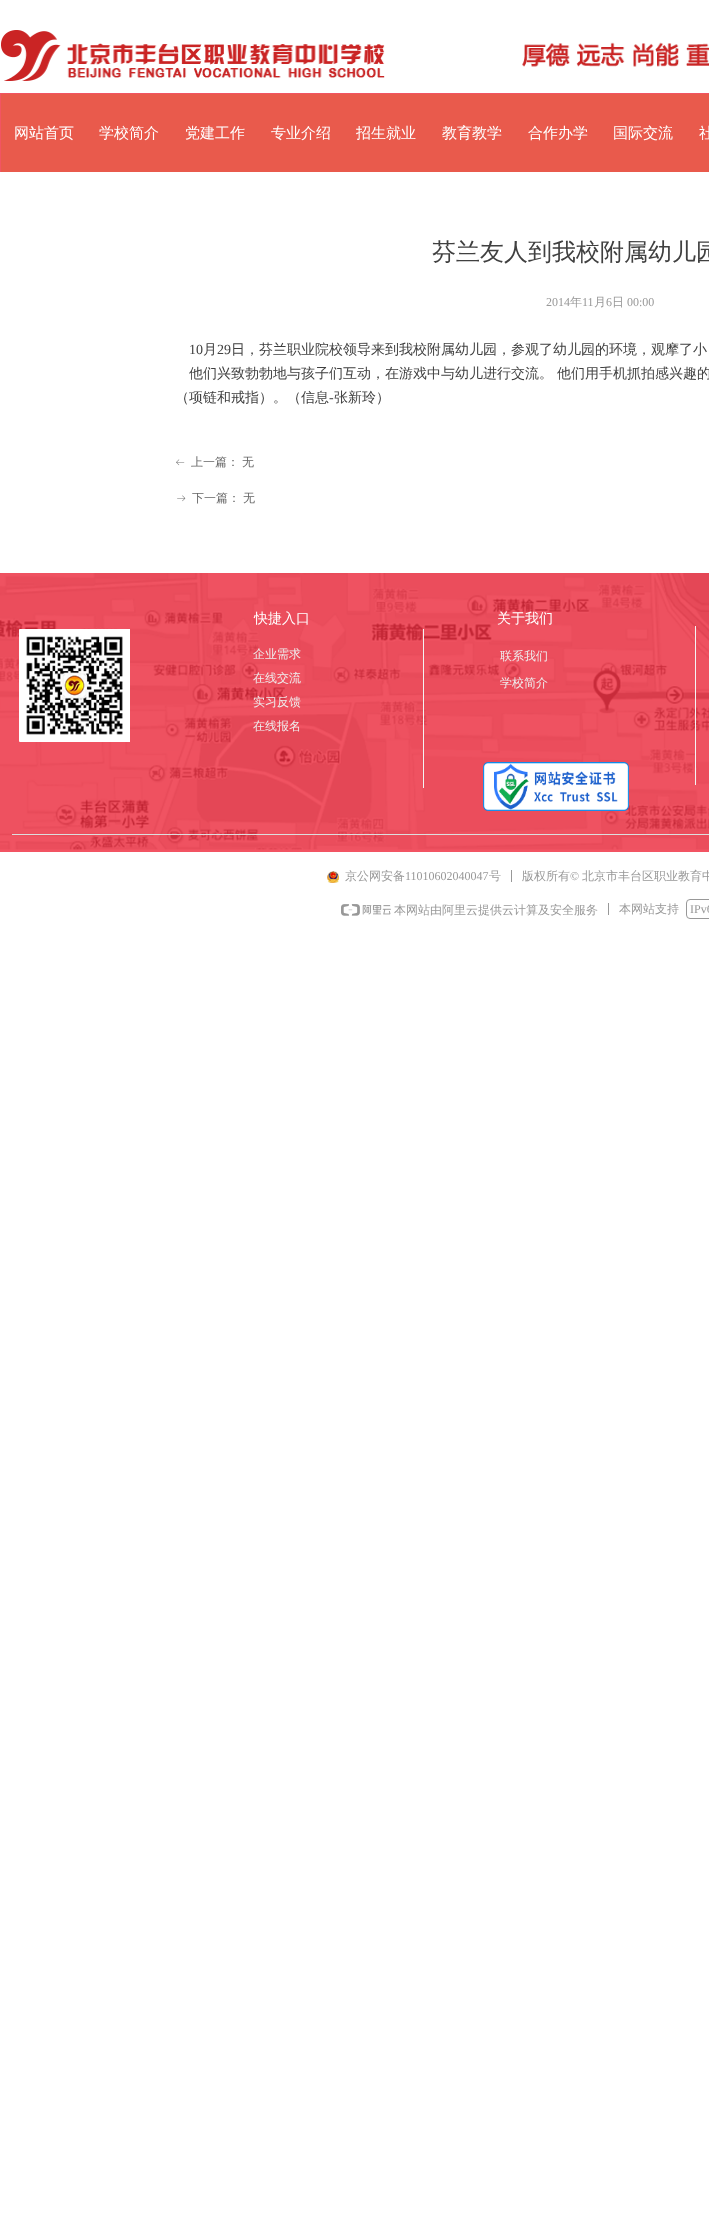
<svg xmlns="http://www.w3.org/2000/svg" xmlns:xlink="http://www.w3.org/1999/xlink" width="709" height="2224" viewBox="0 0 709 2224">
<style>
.cls-1{font:500 15px WenQuanYi Zen Hei;fill:#ffffff}
.cls-2{font:500 24px WenQuanYi Zen Hei;fill:#404040}
.cls-3{font:12px Liberation Serif;fill:#989898}
.cls-4{font:500 12px WenQuanYi Zen Hei;fill:#989898}
.cls-5{font:14px Liberation Serif;fill:#404040}
.cls-6{font:500 14px WenQuanYi Zen Hei;fill:#404040}
.cls-7{font:500 12px WenQuanYi Zen Hei;fill:#666666}
.cls-8{font:500 14px WenQuanYi Zen Hei;fill:#ffffff}
.cls-9{font:500 12px WenQuanYi Zen Hei;fill:#eeeeee}
</style>
<rect width="100%" height="100%" fill="#ffffff"/>
<image xlink:href="image0.png" x="1" y="30" width="384" height="51"/>
<image xlink:href="image1.png" x="522" y="42" width="187" height="25"/>
<rect fill="#f25463" x="0" y="93" width="709" height="79"/>
<rect fill="#e95a4c" x="1" y="94" width="708" height="78"/>
<image xlink:href="image2.png" x="176" y="459" width="9" height="7"/>
<image xlink:href="image3.png" x="177" y="495" width="9" height="7"/>
<image xlink:href="image4.png" x="0" y="573" width="709" height="279"/>
<image xlink:href="image5.png" x="19" y="629" width="111" height="113"/>
<rect fill="#f3f3f3" x="423" y="629" width="1" height="159"/>
<rect fill="#f3f3f3" x="695" y="626" width="1" height="159"/>
<image xlink:href="image6.png" x="483" y="762" width="146" height="49"/>
<rect fill="#dddddd" x="12" y="834" width="697" height="1"/>
<image xlink:href="image7.png" x="327" y="871" width="12" height="12"/>
<rect fill="#989898" x="511" y="870" width="1" height="12"/>
<image xlink:href="image8.png" x="341" y="904" width="50" height="12"/>
<rect fill="#989898" x="608" y="903" width="1" height="12"/>
<rect fill="none" stroke="#989898" x="686.5" y="899.5" width="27" height="19" rx="3.5"/>
<text class="cls-1" x="14" y="138">网站首页</text>
<text class="cls-1" x="99" y="138">学校简介</text>
<text class="cls-1" x="185" y="138">党建工作</text>
<text class="cls-1" x="271" y="138">专业介绍</text>
<text class="cls-1" x="356" y="138">招生就业</text>
<text class="cls-1" x="442" y="138">教育教学</text>
<text class="cls-1" x="528" y="138">合作办学</text>
<text class="cls-1" x="613" y="138">国际交流</text>
<text class="cls-1" x="699" y="138">社</text>
<text class="cls-2" x="432" y="260">芬兰友人到我校附属幼儿园</text>
<text class="cls-3" x="546" y="306">2014</text>
<text class="cls-4" x="570" y="306">年</text>
<text class="cls-3" x="582" y="306">11</text>
<text class="cls-4" x="594" y="306">月</text>
<text class="cls-3" x="606" y="306">6</text>
<text class="cls-4" x="612" y="306">日</text>
<text class="cls-3" x="627" y="306">00:00</text>
<text class="cls-5" x="189" y="354">10</text>
<text class="cls-6" x="203" y="354">月</text>
<text class="cls-5" x="217" y="354">29</text>
<text class="cls-6" x="231" y="354">日，芬兰职业院校领导来到我校附属幼儿园，参观了幼儿园的环境，观摩了小</text>
<text class="cls-6" x="189" y="378">他们兴致勃勃地与孩子们互动，在游戏中与幼儿进行交流。</text>
<text class="cls-6" x="557" y="378">他们用手机抓拍感兴趣的</text>
<text class="cls-6" x="175" y="402">（项链和戒指）。（信息</text>
<text class="cls-5" x="329" y="402">-</text>
<text class="cls-6" x="334" y="402">张新玲）</text>
<text class="cls-7" x="191" y="466">上一篇：</text>
<text class="cls-7" x="242" y="466">无</text>
<text class="cls-7" x="192" y="502">下一篇：</text>
<text class="cls-7" x="243" y="502">无</text>
<text class="cls-8" x="254" y="623">快捷入口</text>
<text class="cls-8" x="497" y="623">关于我们</text>
<text class="cls-9" x="253" y="658">企业需求</text>
<text class="cls-9" x="253" y="682">在线交流</text>
<text class="cls-9" x="253" y="706">实习反馈</text>
<text class="cls-9" x="253" y="730">在线报名</text>
<text class="cls-9" x="500" y="660">联系我们</text>
<text class="cls-9" x="500" y="687">学校简介</text>
<text class="cls-4" x="345" y="880">京公网安备</text>
<text class="cls-3" x="405" y="880">11010602040047</text>
<text class="cls-4" x="489" y="880">号</text>
<text class="cls-4" x="522" y="880">版权所有</text>
<text class="cls-3" x="570" y="880">©</text>
<text class="cls-4" x="582" y="880">北京市丰台区职业教育中</text>
<text class="cls-4" x="394" y="914">本网站由阿里云提供云计算及安全服务</text>
<text class="cls-4" x="619" y="913">本网站支持</text>
<text class="cls-3" x="690" y="913">IPv6</text>
</svg>
